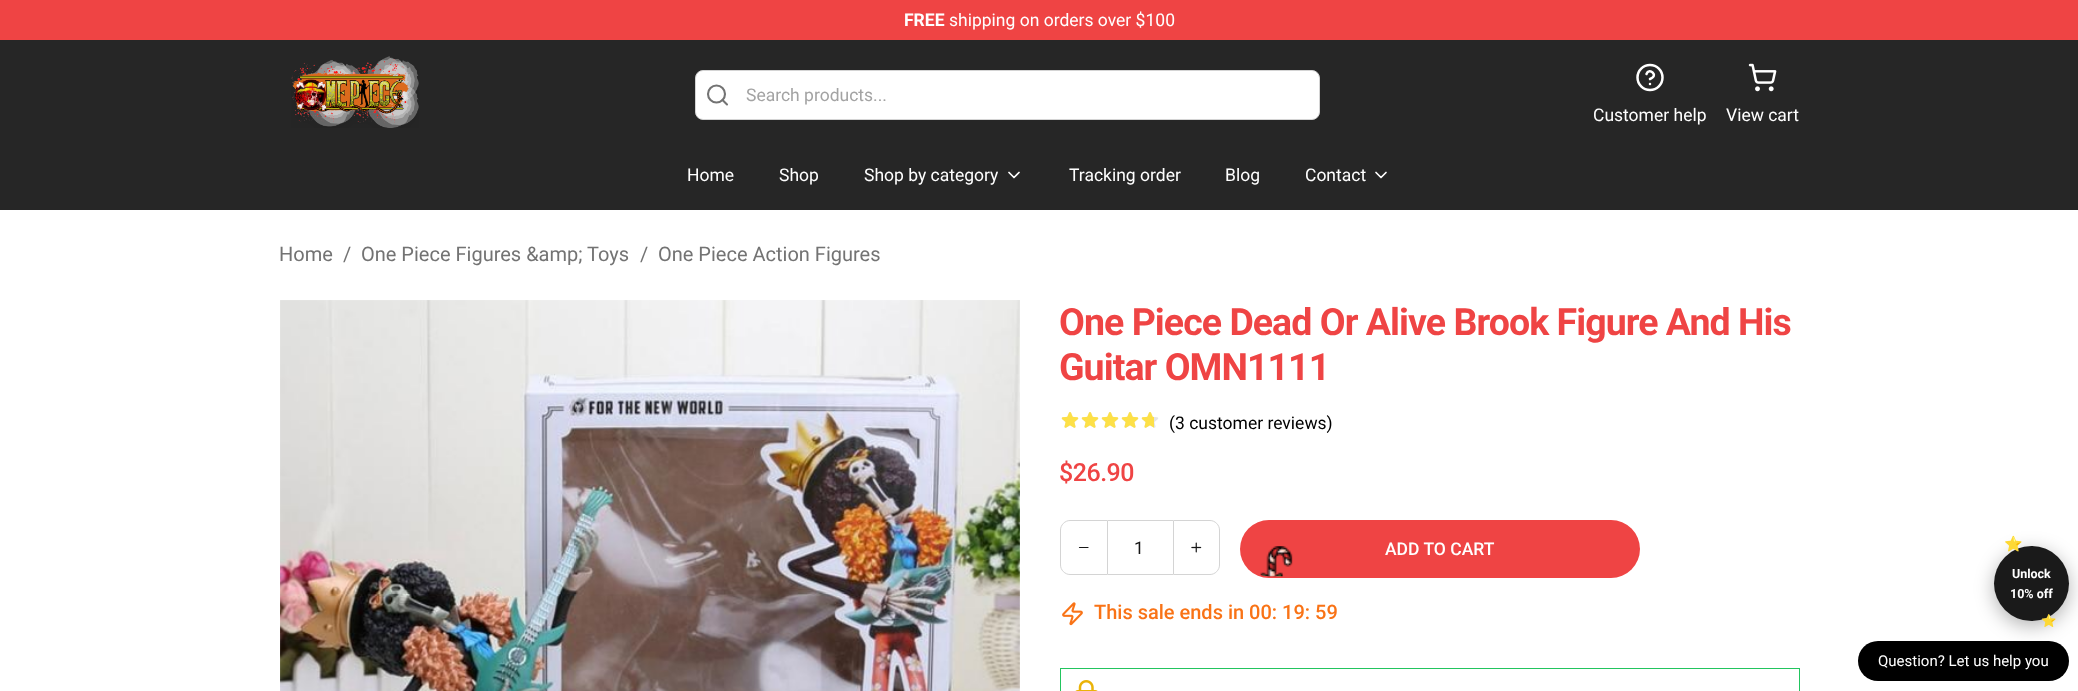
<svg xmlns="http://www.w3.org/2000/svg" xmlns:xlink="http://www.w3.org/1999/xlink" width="2078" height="691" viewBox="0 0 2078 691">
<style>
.cls-1{font:bold 17.5px Roboto;fill:#ffffff}
.cls-2{font:17.5px Roboto;fill:#ffffff}
.cls-3{font:17.5px Roboto;fill:#a3a3a3}
.cls-4{font:20px Roboto;fill:#737373}
.cls-5{font:bold 37.5px Roboto;letter-spacing:-0.95px;fill:#ef4444}
.cls-6{font:17.5px Roboto;fill:#000000}
.cls-7{font:500 25px Roboto;letter-spacing:-0.5px;fill:#ef4444}
.cls-8{font:17.5px Roboto;fill:#171717}
.cls-9{font:500 17.5px Roboto;fill:#ffffff}
.cls-10{font:500 20px Roboto;fill:#f97316}
.cls-11{font:bold 15px Noto Color Emoji;fill:#ffd700}
.cls-12{font:bold 12.5px Roboto;fill:#ffffff}
.cls-13{font:bold 12.5px Noto Color Emoji;fill:#ffd700}
.cls-14{font:15px Roboto;fill:#ffffff}
</style>
<rect width="100%" height="100%" fill="#ffffff"/>
<rect fill="#ef4444" x="0" y="0" width="2078" height="40"/>
<rect fill="#262626" x="0" y="40" width="2078" height="170"/>
<image xlink:href="image0.png" x="291" y="56" width="128" height="72"/>
<rect fill="#ffffff" stroke="#d4d4d4" x="695.5" y="70.5" width="624" height="49" rx="7.5"/>
<path fill="none" stroke="#737373" stroke-width="2.1" stroke-linecap="round" stroke-linejoin="round" d="M727 104.5L722.5 100"/>
<circle fill="none" stroke="#737373" stroke-width="2.1" cx="716.5" cy="94" r="8.5"/>
<circle fill="none" stroke="#ffffff" stroke-width="2.5" cx="1650" cy="77.5" r="12.5"/>
<path fill="none" stroke="#ffffff" stroke-width="2.5" stroke-linecap="round" stroke-linejoin="round" d="M1646.5 74C1649 67 1659.5 75.5 1650 79M1650 84H1650"/>
<image xlink:href="image1.png" x="1748" y="63" width="29" height="29"/>
<path fill="none" stroke="#ffffff" stroke-width="1.7" stroke-linecap="round" stroke-linejoin="round" d="M1009 172.5L1014 177.5L1019 172.5"/>
<path fill="none" stroke="#ffffff" stroke-width="1.7" stroke-linecap="round" stroke-linejoin="round" d="M1376 172.5L1381 177.5L1386 172.5"/>
<image xlink:href="image2.png" x="280" y="300" width="740" height="391"/>
<image xlink:href="image3.png" x="1061" y="412" width="18" height="16"/>
<image xlink:href="image3.png" x="1081" y="412" width="18" height="16"/>
<image xlink:href="image3.png" x="1101" y="412" width="18" height="16"/>
<image xlink:href="image3.png" x="1121" y="412" width="18" height="16"/>
<image xlink:href="image3.png" x="1141" y="412" width="18" height="16"/>
<image xlink:href="image4.png" x="1061" y="412" width="18" height="16"/>
<image xlink:href="image4.png" x="1081" y="412" width="18" height="16"/>
<image xlink:href="image4.png" x="1101" y="412" width="18" height="16"/>
<image xlink:href="image4.png" x="1121" y="412" width="18" height="16"/>
<image xlink:href="image5.png" x="1141" y="412" width="13" height="16"/>
<path fill="none" stroke="#d4d4d4" d="M1070 520.5H1107.5V574.5H1070C1065 574.5 1060.5 570 1060.5 565V530C1060.5 525 1065 520.5 1070 520.5Z"/>
<path fill="none" stroke="#171717" stroke-width="1.2" stroke-linecap="round" stroke-linejoin="round" d="M1079.5 547.5H1088"/>
<rect fill="#d4d4d4" x="1108" y="520" width="65" height="1"/>
<rect fill="#d4d4d4" x="1108" y="574" width="65" height="1"/>
<path fill="none" stroke="#d4d4d4" d="M1173.5 520.5H1210C1215 520.5 1219.5 525 1219.5 530V565C1219.5 570 1215 574.5 1210 574.5H1173.5Z"/>
<image xlink:href="image6.png" x="1191" y="542" width="11" height="11"/>
<rect fill="#ef4444" x="1240" y="520" width="400" height="58" rx="29"/>
<image xlink:href="image7.png" x="1260" y="546" width="33" height="31"/>
<image xlink:href="image8.png" x="1062" y="602" width="21" height="24"/>
<rect fill="none" stroke="#22c55e" x="1060.5" y="668.5" width="739" height="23"/>
<image xlink:href="image9.png" x="1075" y="680" width="23" height="11"/>
<rect fill="#000000" x="1858" y="641" width="211" height="40" rx="20"/>
<rect fill="#000000" fill-opacity="0.3" filter="blur(9.5px)" x="1994" y="551" width="75" height="75" rx="37.5"/>
<circle fill="#1a1a1a" cx="2031.5" cy="583.5" r="37.5"/>
<text class="cls-1" x="904" y="26">FREE</text>
<text class="cls-2" x="949" y="26">shipping on orders over $100</text>
<text class="cls-3" x="746" y="101">Search products...</text>
<text class="cls-2" x="1593" y="121">Customer help</text>
<text class="cls-2" x="1726" y="121">View cart</text>
<text class="cls-2" x="687" y="181">Home</text>
<text class="cls-2" x="779" y="181">Shop</text>
<text class="cls-2" x="864" y="181">Shop by category</text>
<text class="cls-2" x="1069" y="181">Tracking order</text>
<text class="cls-2" x="1225" y="181">Blog</text>
<text class="cls-2" x="1305" y="181">Contact</text>
<text class="cls-4" x="279" y="261">Home</text>
<text class="cls-4" x="343" y="261">/</text>
<text class="cls-4" x="361" y="261">One Piece Figures &amp;amp; Toys</text>
<text class="cls-4" x="640" y="261">/</text>
<text class="cls-4" x="658" y="261">One Piece Action Figures</text>
<text class="cls-5"><tspan x="1059" y="335">One Piece Dead Or Alive Brook Figure And His</tspan><tspan x="1059" y="380">Guitar OMN1111</tspan></text>
<text class="cls-6" x="1169" y="429">(3 customer reviews)</text>
<text class="cls-7" x="1059" y="481">$26.90</text>
<text class="cls-8" x="1134" y="554">1</text>
<text class="cls-9" x="1385" y="555">ADD TO CART</text>
<text class="cls-10" x="1094" y="619">This sale ends in 00: 19: 59</text>
<text class="cls-11" x="2004" y="549">⭐</text>
<text class="cls-12" x="2012" y="578">Unlock</text>
<text class="cls-12" x="2010" y="598">10% off</text>
<text class="cls-13" x="2041" y="625">⭐</text>
<text class="cls-14" x="1878" y="666">Question? Let us help you</text>
</svg>
